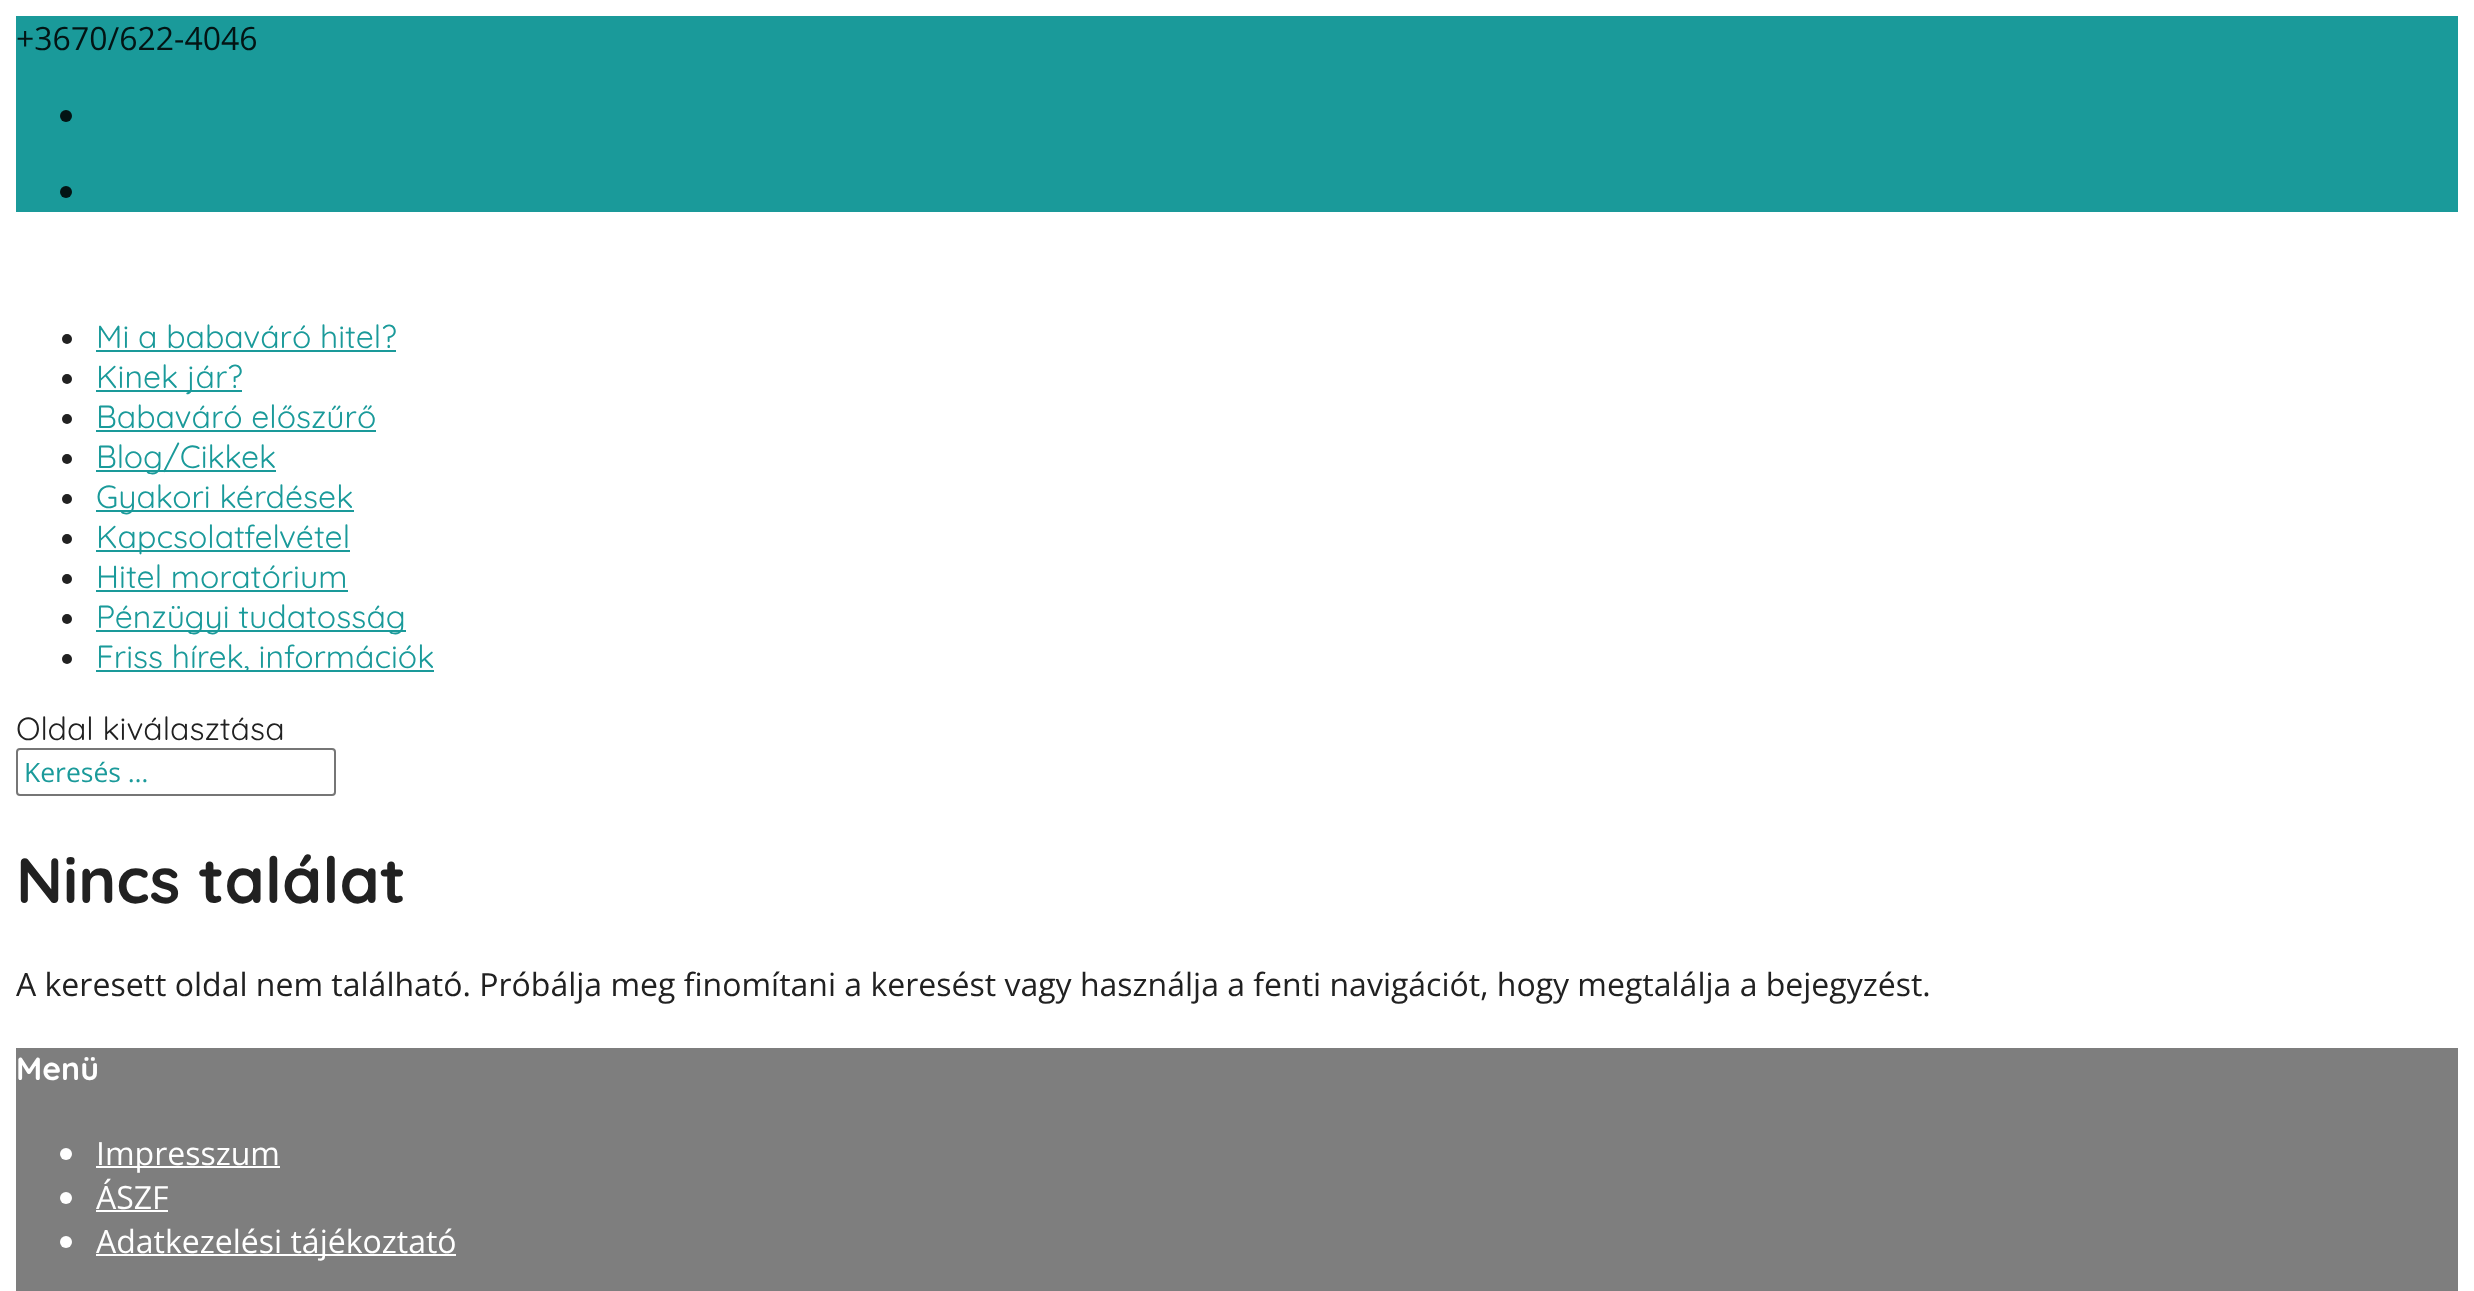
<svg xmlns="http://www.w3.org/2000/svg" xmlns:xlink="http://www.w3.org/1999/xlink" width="2474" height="1291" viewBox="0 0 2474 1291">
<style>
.cls-1{font:32px Open Sans;fill:#031414}
.cls-2{font:32px Quicksand;fill:#1a9a9a}
.cls-3{font:32px Quicksand;fill:#212121}
.cls-4{font:26.5px Open Sans;fill:#1a9a9a}
.cls-5{font:bold 64px Quicksand;fill:#212121}
.cls-6{font:32px Open Sans;fill:#212121}
.cls-7{font:bold 32px Quicksand;fill:#ffffff}
.cls-8{font:32px Open Sans;fill:#ffffff}
</style>
<rect width="100%" height="100%" fill="#ffffff"/>
<rect fill="#1a9a9a" x="16" y="16" width="2442" height="196"/>
<circle fill="#031414" cx="66" cy="116" r="6"/>
<circle fill="#031414" cx="66" cy="192" r="6"/>
<circle fill="#212121" cx="67" cy="339" r="5"/>
<rect fill="#1a9a9a" x="96" y="350" width="300" height="2"/>
<circle fill="#212121" cx="67" cy="379" r="5"/>
<rect fill="#1a9a9a" x="96" y="390" width="146" height="2"/>
<circle fill="#212121" cx="67" cy="419" r="5"/>
<rect fill="#1a9a9a" x="96" y="430" width="280" height="2"/>
<circle fill="#212121" cx="67" cy="459" r="5"/>
<rect fill="#1a9a9a" x="96" y="470" width="180" height="2"/>
<circle fill="#212121" cx="67" cy="499" r="5"/>
<rect fill="#1a9a9a" x="96" y="510" width="258" height="2"/>
<circle fill="#212121" cx="67" cy="539" r="5"/>
<rect fill="#1a9a9a" x="96" y="550" width="254" height="2"/>
<circle fill="#212121" cx="67" cy="579" r="5"/>
<rect fill="#1a9a9a" x="96" y="590" width="252" height="2"/>
<circle fill="#212121" cx="67" cy="619" r="5"/>
<rect fill="#1a9a9a" x="96" y="630" width="310" height="2"/>
<circle fill="#212121" cx="67" cy="659" r="5"/>
<rect fill="#1a9a9a" x="96" y="670" width="338" height="2"/>
<rect fill="none" stroke="#767676" stroke-width="2" x="17" y="749" width="318" height="46" rx="3"/>
<rect fill="#7e7e7e" x="16" y="1048" width="2442" height="243"/>
<circle fill="#ffffff" cx="66" cy="1154" r="6"/>
<rect fill="#ffffff" x="96" y="1166" width="184" height="2"/>
<circle fill="#ffffff" cx="66" cy="1198" r="6"/>
<rect fill="#ffffff" x="96" y="1210" width="72" height="2"/>
<circle fill="#ffffff" cx="66" cy="1242" r="6"/>
<rect fill="#ffffff" x="96" y="1254" width="360" height="2"/>
<text class="cls-1" x="16" y="50">+3670/622-4046</text>
<text class="cls-2"><tspan x="96" y="348">Mi a babaváró hitel?</tspan><tspan x="96" y="388">Kinek jár?</tspan><tspan x="96" y="428">Babaváró előszűrő</tspan><tspan x="96" y="468">Blog/Cikkek</tspan><tspan x="96" y="508">Gyakori kérdések</tspan><tspan x="96" y="548">Kapcsolatfelvétel</tspan><tspan x="96" y="588">Hitel moratórium</tspan><tspan x="96" y="628">Pénzügyi tudatosság</tspan><tspan x="96" y="668">Friss hírek, információk</tspan></text>
<text class="cls-3" x="16" y="740">Oldal kiválasztása</text>
<text class="cls-4" x="24" y="782">Keresés …</text>
<text class="cls-5" x="16" y="903">Nincs találat</text>
<text class="cls-6" x="16" y="996">A keresett oldal nem található. Próbálja meg finomítani a keresést vagy használja a fenti navigációt, hogy megtalálja a bejegyzést.</text>
<text class="cls-7" x="16" y="1080">Menü</text>
<text class="cls-8"><tspan x="96" y="1165">Impresszum</tspan><tspan x="96" y="1209">ÁSZF</tspan><tspan x="96" y="1253">Adatkezelési tájékoztató</tspan></text>
</svg>
